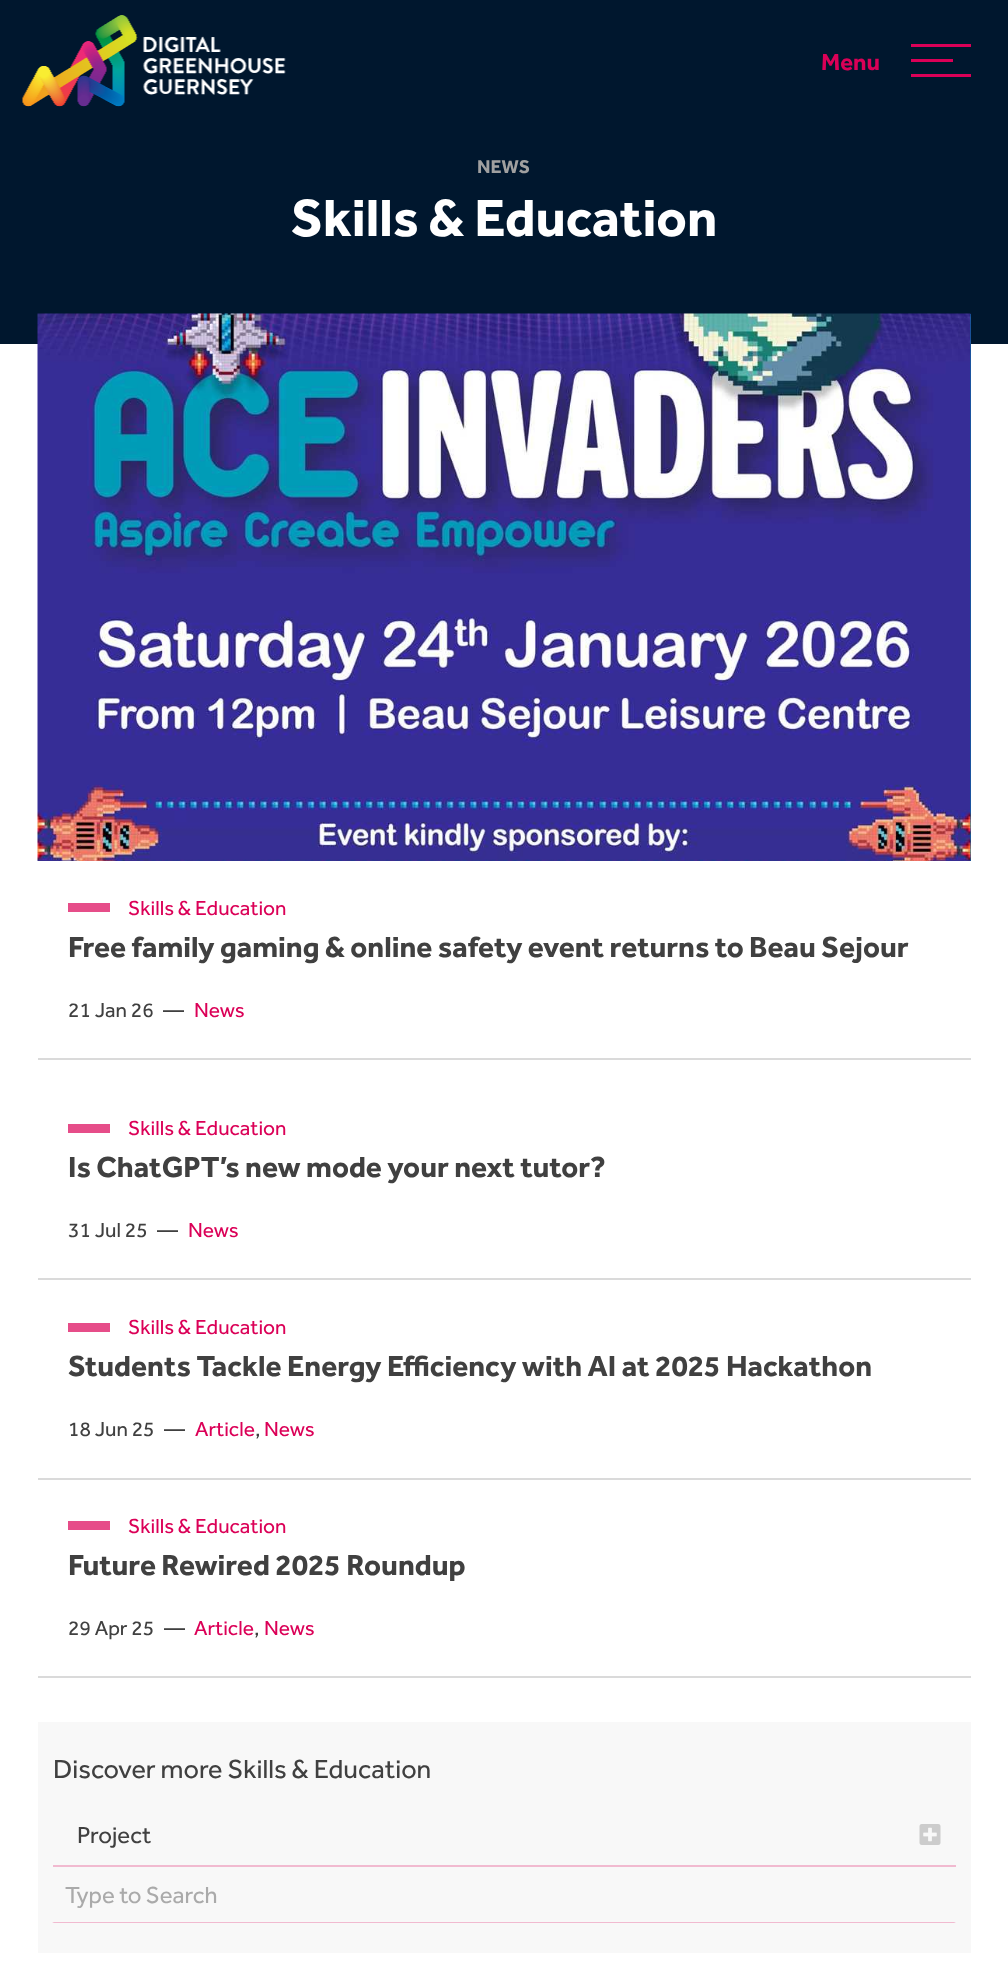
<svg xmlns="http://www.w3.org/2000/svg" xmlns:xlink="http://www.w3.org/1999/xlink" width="1008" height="1982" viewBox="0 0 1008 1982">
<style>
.cls-1{font:bold 24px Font;fill:#db0057}
.cls-2{font:bold 19px Font;fill:#a0a0a0}
.cls-3{font:bold 54px Font;fill:#ffffff}
.cls-4{font:21px Font;fill:#db0057}
.cls-5{font:bold 30px Font;fill:#404040}
.cls-6{font:21px Font;fill:#404040}
.cls-7{font:27px Font;fill:#404040}
.cls-8{font:24px Font;fill:#404040}
.cls-9{font:24px Font;fill:#aaaaaa}
</style>
<rect width="100%" height="100%" fill="#ffffff"/>
<rect fill="#00172e" x="0" y="0" width="1008" height="344"/>
<image xlink:href="image0.png" x="22" y="15" width="264" height="92"/>
<rect fill="#db0057" x="911" y="44" width="60" height="3"/>
<rect fill="#db0057" x="911" y="59" width="42" height="3"/>
<rect fill="#db0057" x="911" y="74" width="60" height="3"/>
<rect fill="#007ba9" x="970" y="314" width="1" height="547"/>
<image xlink:href="image1.png" x="37" y="313" width="934" height="548"/>
<rect fill="#dadada" x="38" y="1058" width="933" height="2"/>
<rect fill="#e64d89" x="68" y="903" width="42" height="9"/>
<rect fill="#dadada" x="38" y="1278" width="933" height="2"/>
<rect fill="#e64d89" x="68" y="1124" width="42" height="9"/>
<rect fill="#dadada" x="38" y="1478" width="933" height="2"/>
<rect fill="#e64d89" x="68" y="1323" width="42" height="9"/>
<rect fill="#dadada" x="38" y="1676" width="933" height="2"/>
<rect fill="#e64d89" x="68" y="1521" width="42" height="9"/>
<rect fill="#f8f8f8" x="38" y="1722" width="933" height="231"/>
<rect fill="#f1bad0" x="53" y="1865" width="903" height="2"/>
<image xlink:href="image2.png" x="919" y="1824" width="22" height="21"/>
<path fill="#f1bad0" d="M956 1923H52L54 1922H954Z"/>
<text class="cls-1" x="821" y="70">Menu</text>
<text class="cls-2" x="477" y="173">NEWS</text>
<text class="cls-3" x="291" y="236">Skills &amp; Education</text>
<text class="cls-4" x="128" y="915">Skills &amp; Education</text>
<text class="cls-5" x="68" y="957">Free family gaming &amp; online safety event returns to Beau Sejour</text>
<text class="cls-6" x="68" y="1017">21 Jan 26</text>
<text class="cls-6" x="163" y="1017">—</text>
<text class="cls-4" x="194" y="1017">News</text>
<text class="cls-4" x="128" y="1135">Skills &amp; Education</text>
<text class="cls-5" x="68" y="1177">Is ChatGPT’s new mode your next tutor?</text>
<text class="cls-6" x="68" y="1237">31 Jul 25</text>
<text class="cls-6" x="157" y="1237">—</text>
<text class="cls-4" x="188" y="1237">News</text>
<text class="cls-4" x="128" y="1334">Skills &amp; Education</text>
<text class="cls-5" x="68" y="1376">Students Tackle Energy Efficiency with AI at 2025 Hackathon</text>
<text class="cls-6" x="68" y="1436">18 Jun 25</text>
<text class="cls-6" x="164" y="1436">—</text>
<text class="cls-4" x="195" y="1436">Article</text>
<text class="cls-6" x="255" y="1436">,</text>
<text class="cls-4" x="264" y="1436">News</text>
<text class="cls-4" x="128" y="1533">Skills &amp; Education</text>
<text class="cls-5" x="68" y="1575">Future Rewired 2025 Roundup</text>
<text class="cls-6" x="68" y="1635">29 Apr 25</text>
<text class="cls-6" x="164" y="1635">—</text>
<text class="cls-4" x="194" y="1635">Article</text>
<text class="cls-6" x="254" y="1635">,</text>
<text class="cls-4" x="264" y="1635">News</text>
<text class="cls-7" x="53" y="1778">Discover more Skills &amp; Education</text>
<text class="cls-8" x="77" y="1843">Project</text>
<text class="cls-9" x="65" y="1903">Type to Search</text>
</svg>
